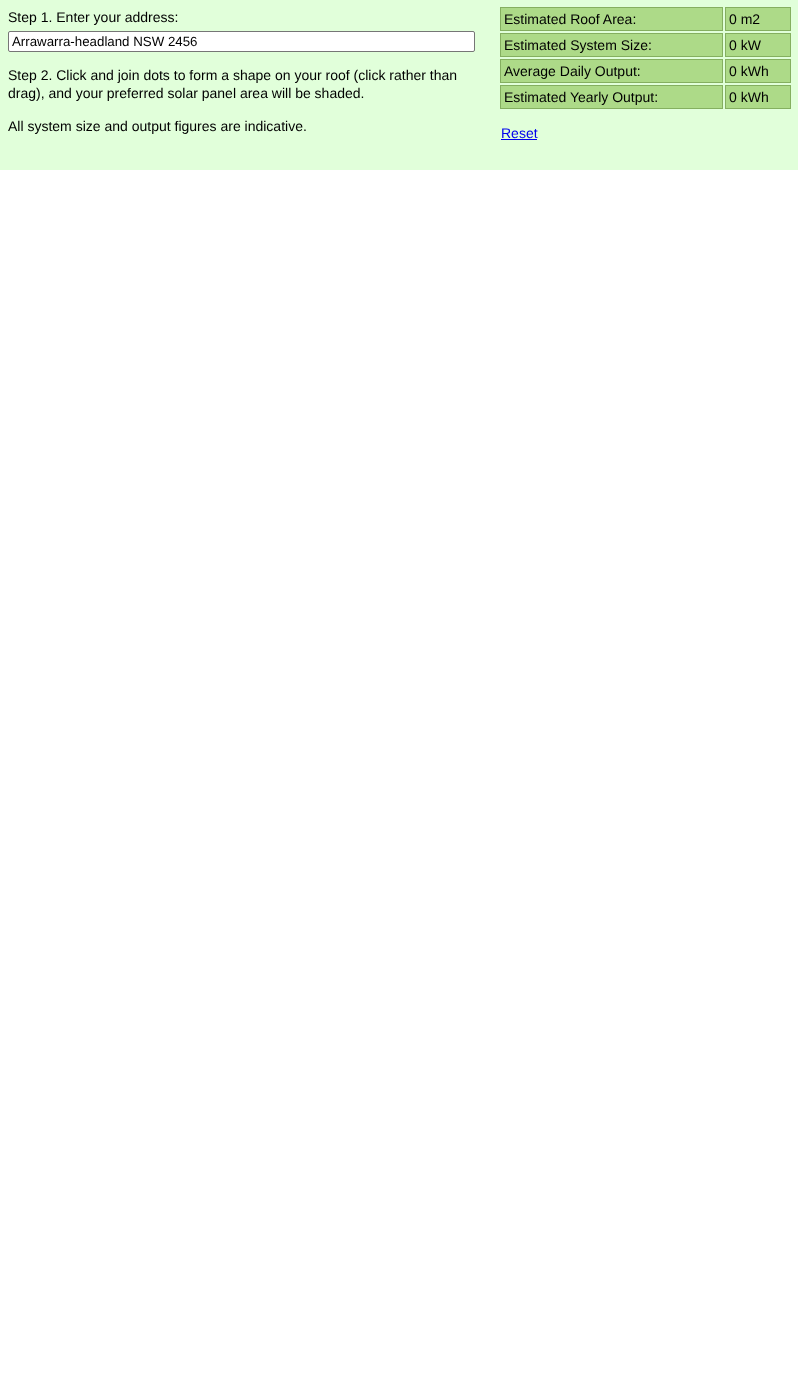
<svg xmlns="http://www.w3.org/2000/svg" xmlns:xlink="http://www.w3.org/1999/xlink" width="798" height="1388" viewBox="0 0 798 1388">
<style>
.cls-1{font:14px Liberation Sans;fill:#000000}
.cls-2{font:13.3px Liberation Sans;fill:#000000}
.cls-3{font:14px Liberation Sans;fill:#0000ee}
</style>
<rect width="100%" height="100%" fill="#ffffff"/>
<rect fill="#e1ffda" x="0" y="0" width="798" height="170"/>
<rect fill="#ffffff" stroke="#767676" x="8.5" y="31.5" width="466" height="20" rx="1.5"/>
<rect fill="#adda88" stroke="#85af60" x="500.5" y="7.5" width="222" height="23"/>
<rect fill="#adda88" stroke="#85af60" x="725.5" y="7.5" width="65" height="23"/>
<rect fill="#adda88" stroke="#85af60" x="500.5" y="33.5" width="222" height="23"/>
<rect fill="#adda88" stroke="#85af60" x="725.5" y="33.5" width="65" height="23"/>
<rect fill="#adda88" stroke="#85af60" x="500.5" y="59.5" width="222" height="23"/>
<rect fill="#adda88" stroke="#85af60" x="725.5" y="59.5" width="65" height="23"/>
<rect fill="#adda88" stroke="#85af60" x="500.5" y="85.5" width="222" height="23"/>
<rect fill="#adda88" stroke="#85af60" x="725.5" y="85.5" width="65" height="23"/>
<rect fill="#0000ee" x="501" y="139" width="36" height="1"/>
<text class="cls-1" x="8" y="22">Step 1. Enter your address:</text>
<text class="cls-2" x="12" y="46">Arrawarra-headland NSW 2456</text>
<text class="cls-1"><tspan x="8" y="80">Step 2. Click and join dots to form a shape on your roof (click rather than</tspan><tspan x="8" y="98">drag), and your preferred solar panel area will be shaded.</tspan></text>
<text class="cls-1" x="8" y="131">All system size and output figures are indicative.</text>
<text class="cls-1" x="504" y="24">Estimated Roof Area:</text>
<text class="cls-1" x="729" y="24">0 m2</text>
<text class="cls-1" x="504" y="50">Estimated System Size:</text>
<text class="cls-1" x="729" y="50">0 kW</text>
<text class="cls-1" x="504" y="76">Average Daily Output:</text>
<text class="cls-1" x="729" y="76">0 kWh</text>
<text class="cls-1" x="504" y="102">Estimated Yearly Output:</text>
<text class="cls-1" x="729" y="102">0 kWh</text>
<text class="cls-3" x="501" y="138">Reset</text>
</svg>
